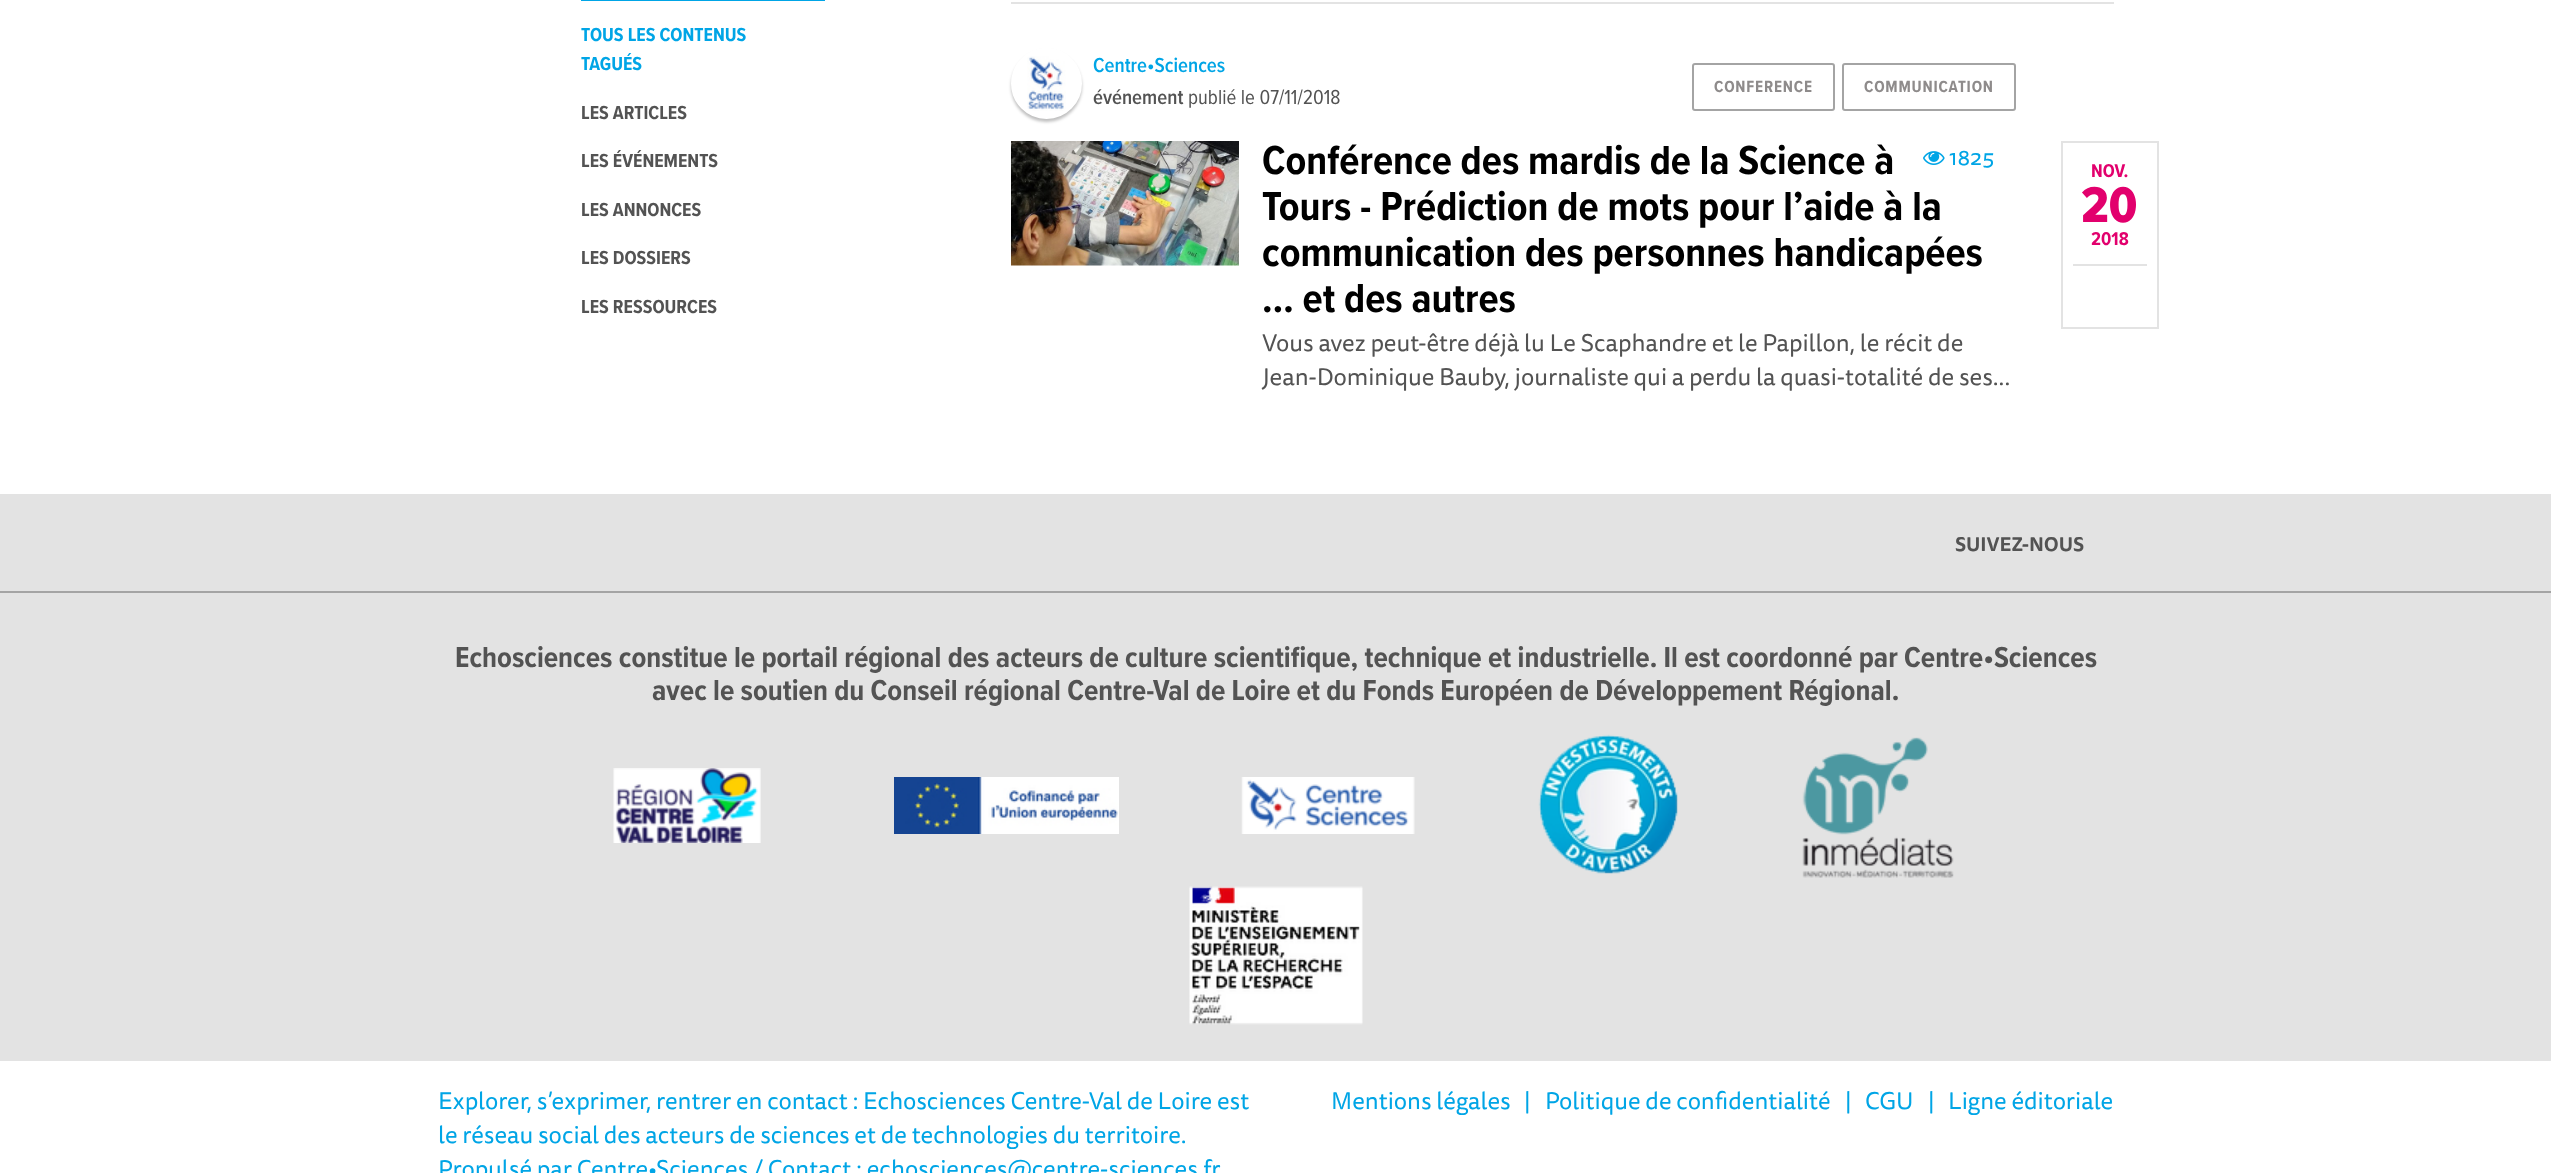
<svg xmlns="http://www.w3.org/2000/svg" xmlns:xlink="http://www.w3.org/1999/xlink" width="2551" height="1173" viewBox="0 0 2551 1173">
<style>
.cls-1{font:bold 19.5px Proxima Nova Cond;fill:#00a5e6}
.cls-2{font:bold 19.5px Proxima Nova Cond;fill:#535353}
.cls-3{font:600 21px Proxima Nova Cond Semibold;fill:#00a5e6}
.cls-4{font:600 21px Proxima Nova Cond Semibold;fill:#535353}
.cls-5{font:21px Proxima Nova Cond;fill:#535353}
.cls-6{font:bold 16.75px Proxima Nova Cond;letter-spacing:0.8px;fill:#8e8b8b}
.cls-7{font:bold 42px Proxima Nova Cond;fill:#000000}
.cls-8{font:24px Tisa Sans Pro;fill:#535353}
.cls-9{font:22px Tisa Sans Pro;fill:#00a5e6}
.cls-10{font:bold 19.25px Proxima Nova Cond;fill:#e2006d}
.cls-11{font:800 52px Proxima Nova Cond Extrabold;fill:#e2006d}
.cls-12{font:bold 19.25px Tisa Sans Pro;fill:#535353}
.cls-13{font:bold 30px Proxima Nova Cond;fill:#535353}
.cls-14{font:24px Tisa Sans Pro;fill:#00a5e6}
</style>
<rect width="100%" height="100%" fill="#ffffff"/>
<rect fill="#00a5e6" x="581" y="0" width="244" height="1"/>
<rect fill="#e3e3e3" x="1011" y="2" width="1103" height="2"/>
<rect fill="#000000" fill-opacity="0.25" filter="blur(1.5px)" x="1011" y="51" width="71" height="71" rx="35.5"/>
<circle fill="#ffffff" stroke="#ffffff" stroke-width="3" cx="1046.5" cy="83.5" r="34"/>
<image xlink:href="image0.png" x="1027" y="56" width="39" height="55"/>
<rect fill="none" stroke="#a4a4a4" stroke-width="2" x="1693" y="64" width="141" height="46" rx="2"/>
<rect fill="none" stroke="#a4a4a4" stroke-width="2" x="1843" y="64" width="172" height="46" rx="2"/>
<image xlink:href="image1.png" x="1011" y="141" width="228" height="125"/>
<image xlink:href="image2.png" x="1923" y="151" width="22" height="14"/>
<rect fill="none" stroke="#e3e3e3" stroke-width="2" x="2062" y="142" width="96" height="186"/>
<rect fill="#e3e3e3" x="2073" y="264" width="74" height="2"/>
<rect fill="#e3e3e3" x="0" y="494" width="2551" height="97"/>
<rect fill="#e3e3e3" x="0" y="593" width="2551" height="468"/>
<rect fill="#a4a4a4" x="0" y="591" width="2551" height="2"/>
<image xlink:href="image3.png" x="613" y="768" width="148" height="75"/>
<image xlink:href="image4.png" x="894" y="777" width="225" height="57"/>
<image xlink:href="image5.png" x="1241" y="777" width="174" height="57"/>
<image xlink:href="image6.png" x="1538" y="734" width="140" height="140"/>
<image xlink:href="image7.png" x="1802" y="737" width="152" height="141"/>
<image xlink:href="image8.png" x="1189" y="886" width="174" height="139"/>
<text class="cls-1"><tspan x="581" y="41">TOUS LES CONTENUS</tspan><tspan x="581" y="70">TAGUÉS</tspan></text>
<text class="cls-2" x="581" y="119">LES ARTICLES</text>
<text class="cls-2" x="581" y="167">LES ÉVÉNEMENTS</text>
<text class="cls-2" x="581" y="216">LES ANNONCES</text>
<text class="cls-2" x="581" y="264">LES DOSSIERS</text>
<text class="cls-2" x="581" y="313">LES RESSOURCES</text>
<text class="cls-3" x="1093" y="72">Centre•Sciences</text>
<text class="cls-4" x="1093" y="104">événement</text>
<text class="cls-5" x="1188" y="104">publié le 07/11/2018</text>
<text class="cls-6" x="1714" y="92">CONFERENCE</text>
<text class="cls-6" x="1864" y="92">COMMUNICATION</text>
<text class="cls-7"><tspan x="1262" y="174">Conférence des mardis de la Science à</tspan><tspan x="1262" y="220">Tours - Prédiction de mots pour l’aide à la</tspan><tspan x="1262" y="266">communication des personnes handicapées</tspan><tspan x="1262" y="312">… et des autres</tspan></text>
<text class="cls-8"><tspan x="1262" y="351">Vous avez peut-être déjà lu Le Scaphandre et le Papillon, le récit de</tspan><tspan x="1262" y="385">Jean-Dominique Bauby, journaliste qui a perdu la quasi-totalité de ses...</tspan></text>
<text class="cls-9" x="1949" y="165">1825</text>
<text class="cls-10" x="2091" y="177">NOV.</text>
<text class="cls-11" x="2081" y="222">20</text>
<text class="cls-10" x="2091" y="245">2018</text>
<text class="cls-12" x="1955" y="551">SUIVEZ-NOUS</text>
<text class="cls-13" x="455" y="667">Echosciences constitue le portail régional des acteurs de culture scientifique, technique et industrielle. Il est coordonné par Centre•Sciences</text>
<text class="cls-13" x="652" y="700">avec le soutien du Conseil régional Centre-Val de Loire et du Fonds Européen de Développement Régional.</text>
<text class="cls-14"><tspan x="438" y="1109">Explorer, s’exprimer, rentrer en contact : Echosciences Centre-Val de Loire est</tspan><tspan x="438" y="1143">le réseau social des acteurs de sciences et de technologies du territoire.</tspan><tspan x="438" y="1177">Propulsé par Centre•Sciences / Contact : echosciences@centre-sciences.fr</tspan></text>
<text class="cls-14" x="1331" y="1109">Mentions légales</text>
<text class="cls-14" x="1524" y="1109">|</text>
<text class="cls-14" x="1545" y="1109">Politique de confidentialité</text>
<text class="cls-14" x="1845" y="1109">|</text>
<text class="cls-14" x="1865" y="1109">CGU</text>
<text class="cls-14" x="1928" y="1109">|</text>
<text class="cls-14" x="1948" y="1109">Ligne éditoriale</text>
</svg>
